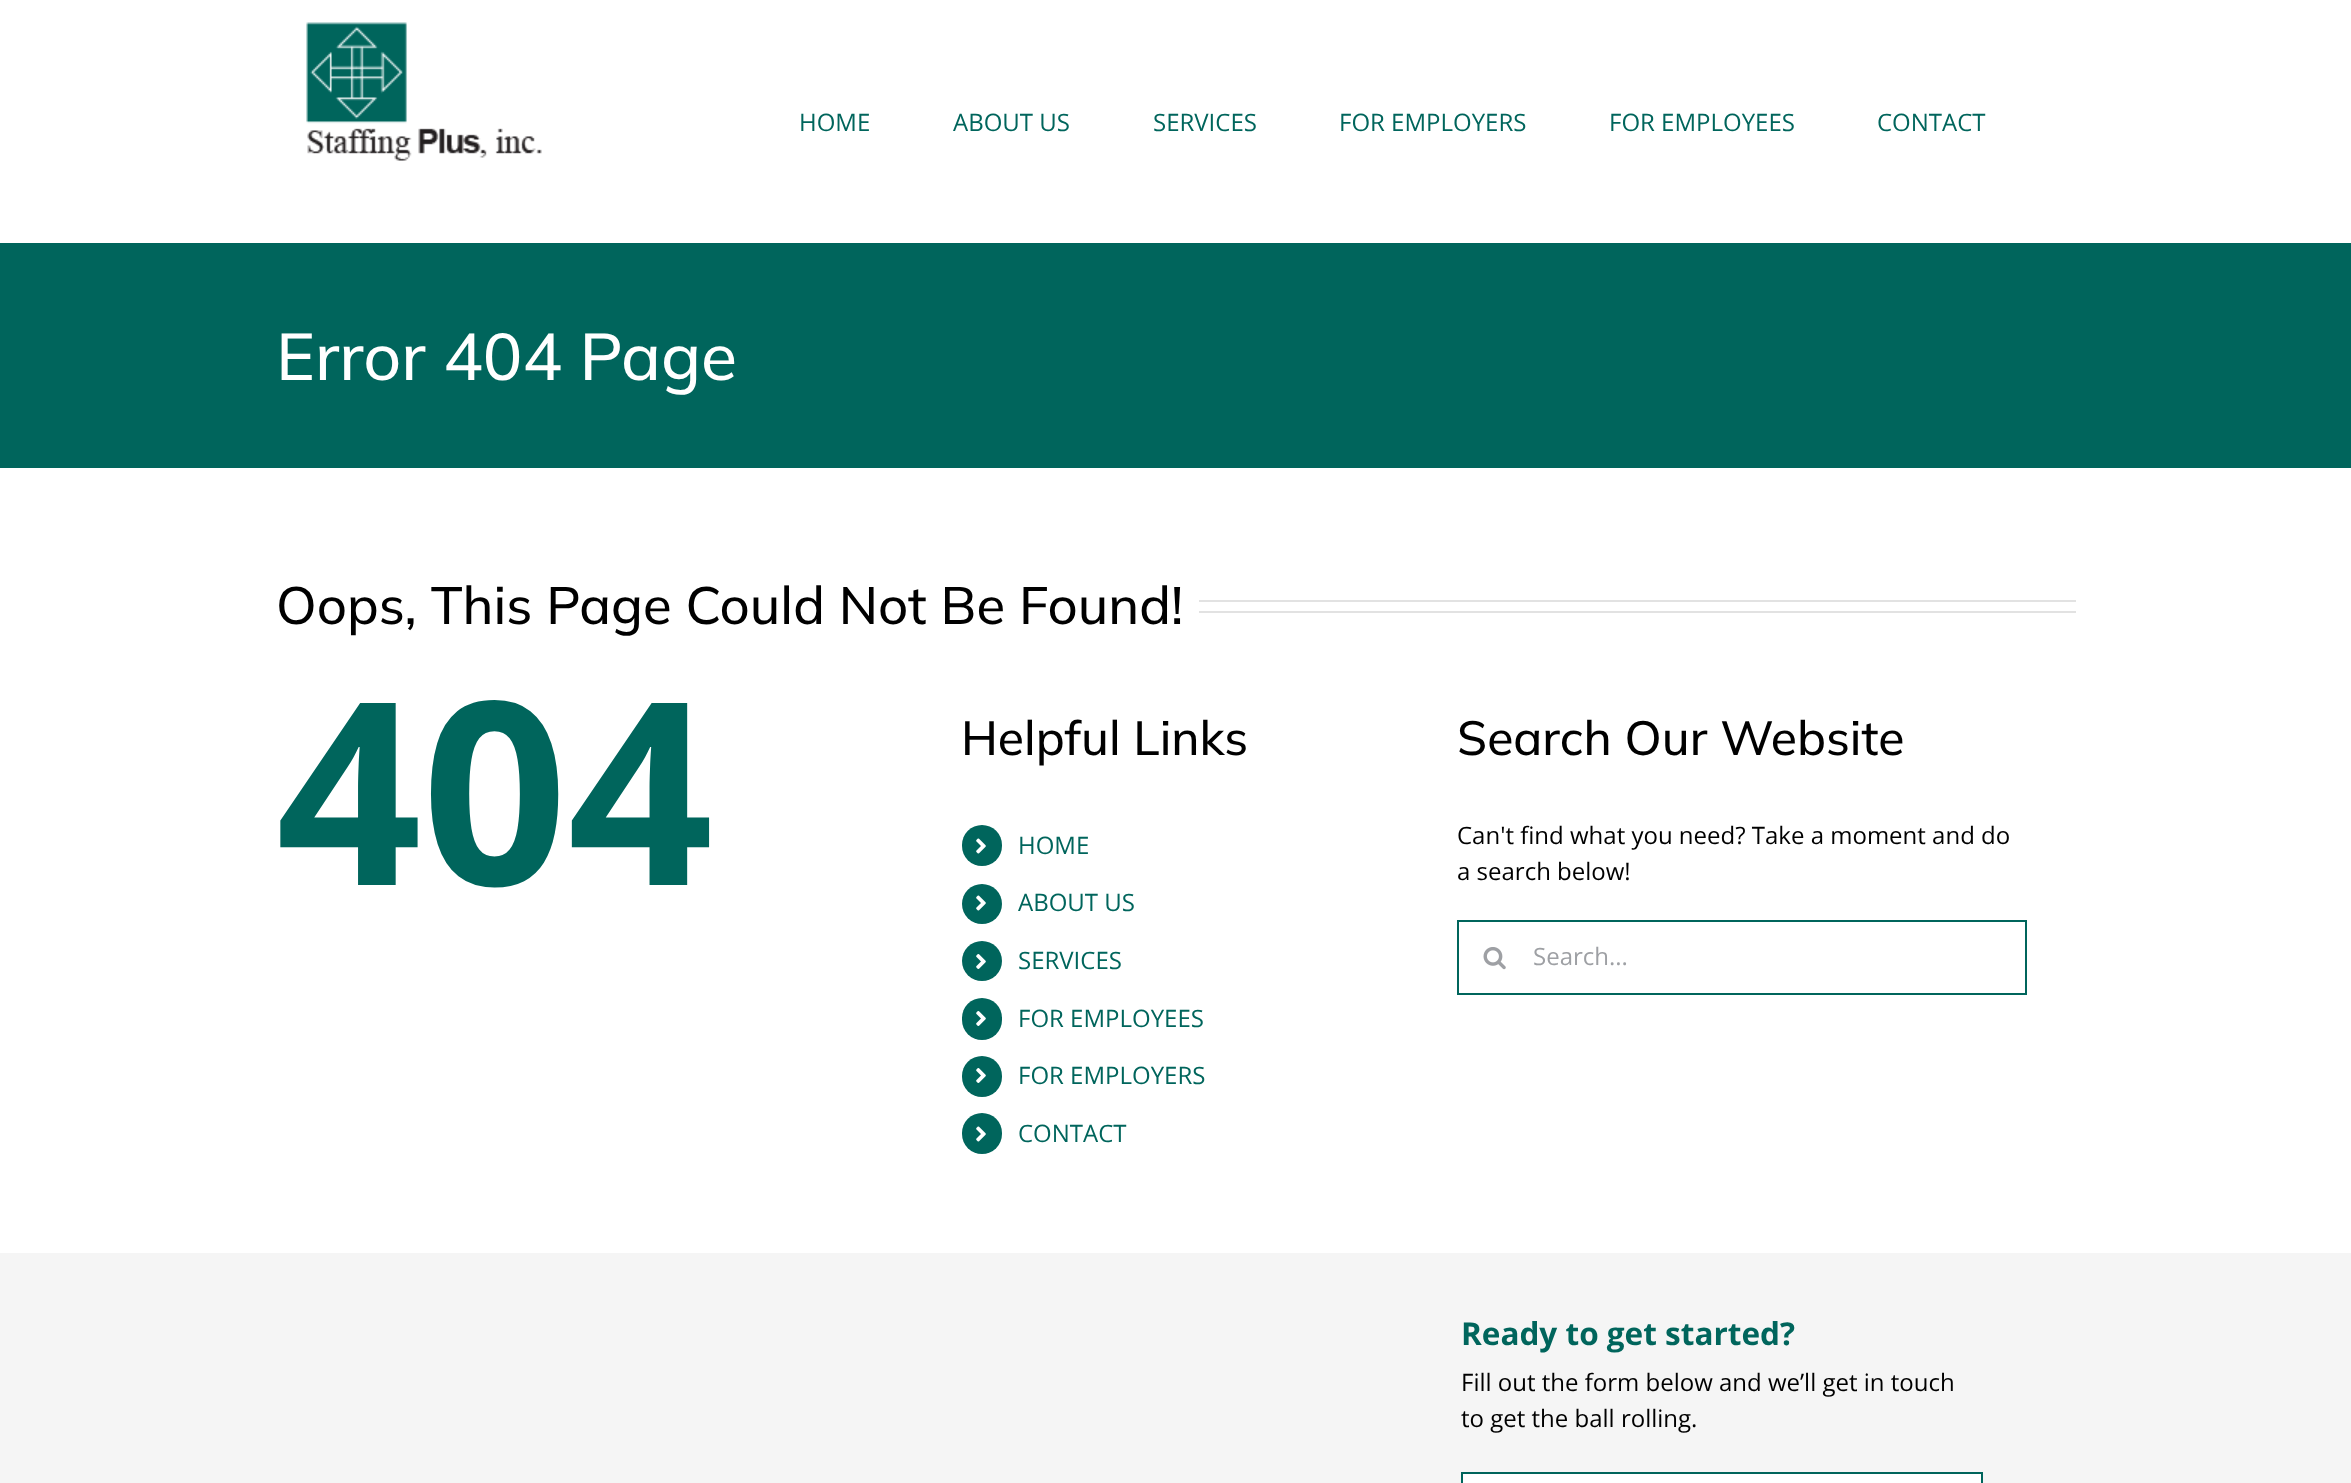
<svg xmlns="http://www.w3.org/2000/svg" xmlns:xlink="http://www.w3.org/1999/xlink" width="2351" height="1483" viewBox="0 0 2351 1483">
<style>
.cls-1{font:24px Open Sans;fill:#00655c}
.cls-2{font:500 66px Mulish;fill:#ffffff}
.cls-3{font:500 52.5px Mulish;fill:#000000}
.cls-4{font:bold 255px Open Sans;fill:#00655c}
.cls-5{font:500 48px Mulish;fill:#000000}
.cls-6{font:24px Open Sans;fill:#000000}
.cls-7{font:24px Open Sans;fill:#9ea0a4}
.cls-8{font:bold 31.5px Open Sans;fill:#00655c}
</style>
<rect width="100%" height="100%" fill="#ffffff"/>
<image xlink:href="image0.png" x="306" y="22" width="236" height="139"/>
<rect fill="#00655c" x="0" y="243" width="2351" height="225"/>
<rect fill="#e2e2e2" x="1199" y="600" width="877" height="2"/>
<rect fill="#e2e2e2" x="1199" y="611" width="877" height="2"/>
<rect fill="#00655c" x="962" y="825" width="40" height="41" rx="20"/>
<image xlink:href="image1.png" x="976" y="838" width="10" height="16"/>
<circle fill="#00655c" cx="982" cy="904" r="20"/>
<image xlink:href="image1.png" x="976" y="895" width="10" height="16"/>
<circle fill="#00655c" cx="982" cy="961" r="20"/>
<image xlink:href="image2.png" x="976" y="954" width="10" height="15"/>
<rect fill="#00655c" x="962" y="998" width="40" height="42" rx="20"/>
<image xlink:href="image2.png" x="976" y="1011" width="10" height="15"/>
<rect fill="#00655c" x="962" y="1056" width="40" height="41" rx="20"/>
<image xlink:href="image2.png" x="976" y="1068" width="10" height="15"/>
<rect fill="#00655c" x="962" y="1113" width="40" height="41" rx="20"/>
<image xlink:href="image1.png" x="976" y="1126" width="10" height="16"/>
<rect fill="none" stroke="#00655c" stroke-width="2" x="1458" y="921" width="568" height="73"/>
<image xlink:href="image3.png" x="1483" y="947" width="23" height="23"/>
<rect fill="#f5f5f5" x="0" y="1253" width="2351" height="230"/>
<rect fill="#ffffff" stroke="#00655c" stroke-width="2" x="1462" y="1473" width="520" height="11"/>
<text class="cls-1" x="799" y="131">HOME</text>
<text class="cls-1" x="953" y="131">ABOUT US</text>
<text class="cls-1" x="1153" y="131">SERVICES</text>
<text class="cls-1" x="1339" y="131">FOR EMPLOYERS</text>
<text class="cls-1" x="1609" y="131">FOR EMPLOYEES</text>
<text class="cls-1" x="1877" y="131">CONTACT</text>
<text class="cls-2" x="276" y="380">Error 404 Page</text>
<text class="cls-3" x="276" y="624">Oops, This Page Could Not Be Found!</text>
<text class="cls-4" x="276" y="885">404</text>
<text class="cls-5" x="961" y="755">Helpful Links</text>
<text class="cls-1" x="1018" y="854">HOME</text>
<text class="cls-1" x="1018" y="911">ABOUT US</text>
<text class="cls-1" x="1018" y="969">SERVICES</text>
<text class="cls-1" x="1018" y="1027">FOR EMPLOYEES</text>
<text class="cls-1" x="1018" y="1084">FOR EMPLOYERS</text>
<text class="cls-1" x="1018" y="1142">CONTACT</text>
<text class="cls-5" x="1457" y="755">Search Our Website</text>
<text class="cls-6"><tspan x="1457" y="844">Can't find what you need? Take a moment and do</tspan><tspan x="1457" y="880">a search below!</tspan></text>
<text class="cls-7" x="1533" y="965">Search...</text>
<text class="cls-8" x="1461" y="1345">Ready to get started?</text>
<text class="cls-6"><tspan x="1461" y="1391">Fill out the form below and we’ll get in touch</tspan><tspan x="1461" y="1427">to get the ball rolling.</tspan></text>
</svg>
